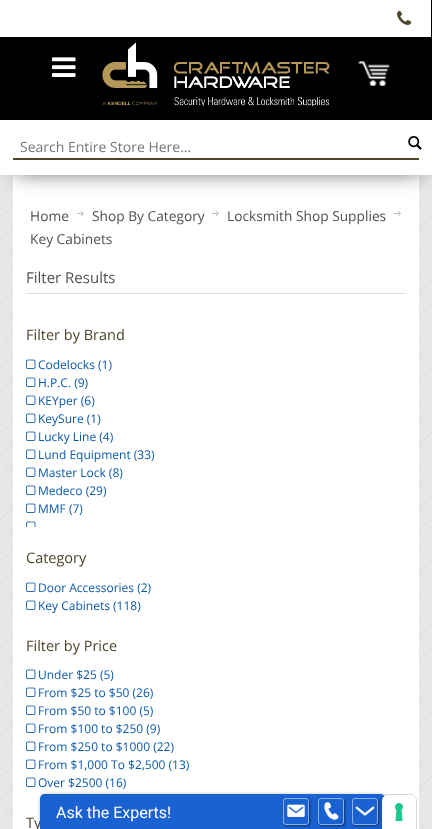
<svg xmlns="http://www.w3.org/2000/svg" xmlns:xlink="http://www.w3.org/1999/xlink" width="432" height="829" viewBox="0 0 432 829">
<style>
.cls-1{font:14px Open Sans;fill:#757575}
.cls-2{font:13.75px Open Sans;fill:#515151}
.cls-3{font:15px Open Sans;fill:#515151}
.cls-4{font:14.5px Open Sans;fill:#4e432b}
.cls-5{font:12px Open Sans;fill:#0a59ab}
.cls-6{font:16px Roboto;fill:#ffffff}
</style>
<defs>
<clipPath id="clip1"><path d="M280 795H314V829H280ZM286 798H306C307.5 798 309 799.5 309 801V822C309 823.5 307.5 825 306 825H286C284.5 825 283 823.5 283 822V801C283 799.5 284.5 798 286 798Z" clip-rule="evenodd"/></clipPath>
<clipPath id="clip2"><path d="M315 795H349V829H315ZM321 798H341C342.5 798 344 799.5 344 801V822C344 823.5 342.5 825 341 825H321C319.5 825 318 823.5 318 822V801C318 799.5 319.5 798 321 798Z" clip-rule="evenodd"/></clipPath>
<clipPath id="clip3"><path d="M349 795H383V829H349ZM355 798H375C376.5 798 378 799.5 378 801V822C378 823.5 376.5 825 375 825H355C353.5 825 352 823.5 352 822V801C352 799.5 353.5 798 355 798Z" clip-rule="evenodd"/></clipPath>
</defs>
<rect width="100%" height="100%" fill="#ffffff"/>
<image xlink:href="image0.png" x="0" y="175" width="432" height="654"/>
<rect fill="#000000" x="0" y="0" width="432" height="120"/>
<rect fill="#ffffff" x="0" y="0" width="431" height="37"/>
<image xlink:href="image1.png" x="397" y="10" width="15" height="15"/>
<image xlink:href="image2.png" x="52" y="57" width="24" height="20"/>
<image xlink:href="image3.png" x="102" y="42" width="228" height="64"/>
<image xlink:href="image4.png" x="358" y="61" width="32" height="25"/>
<rect fill="#ffffff" x="13" y="175" width="406" height="654"/>
<rect fill="#000000" fill-opacity="0.75" filter="blur(11px)" x="15" y="142" width="406" height="29"/>
<rect fill="#ffffff" x="0" y="120" width="432" height="55"/>
<rect fill="#4e432b" x="13" y="158" width="406" height="2"/>
<image xlink:href="image5.png" x="408" y="136" width="14" height="14"/>
<image xlink:href="image6.png" x="77" y="211" width="7" height="5"/>
<image xlink:href="image6.png" x="212" y="211" width="7" height="5"/>
<image xlink:href="image6.png" x="394" y="211" width="7" height="5"/>
<rect fill="#dddddd" x="26" y="293" width="380" height="1"/>
<image xlink:href="image7.png" x="26" y="359" width="10" height="10"/>
<image xlink:href="image7.png" x="26" y="377" width="10" height="10"/>
<image xlink:href="image7.png" x="26" y="395" width="10" height="10"/>
<image xlink:href="image7.png" x="26" y="413" width="10" height="10"/>
<image xlink:href="image7.png" x="26" y="431" width="10" height="10"/>
<image xlink:href="image7.png" x="26" y="449" width="10" height="10"/>
<image xlink:href="image7.png" x="26" y="467" width="10" height="10"/>
<image xlink:href="image7.png" x="26" y="485" width="10" height="10"/>
<image xlink:href="image7.png" x="26" y="503" width="10" height="10"/>
<image xlink:href="image8.png" x="26" y="521" width="10" height="6"/>
<image xlink:href="image7.png" x="26" y="582" width="10" height="10"/>
<image xlink:href="image7.png" x="26" y="600" width="10" height="10"/>
<image xlink:href="image7.png" x="26" y="669" width="10" height="10"/>
<image xlink:href="image7.png" x="26" y="687" width="10" height="10"/>
<image xlink:href="image7.png" x="26" y="705" width="10" height="10"/>
<image xlink:href="image7.png" x="26" y="723" width="10" height="10"/>
<image xlink:href="image7.png" x="26" y="741" width="10" height="10"/>
<image xlink:href="image7.png" x="26" y="759" width="10" height="10"/>
<image xlink:href="image7.png" x="26" y="777" width="10" height="10"/>
<rect fill="#000000" fill-opacity="0.4" filter="blur(2px)" x="41" y="795" width="345" height="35" rx="5"/>
<text class="cls-1" x="20" y="152">Search Entire Store Here...</text>
<text class="cls-2" x="30" y="221">Home</text>
<text class="cls-2" x="92" y="221">Shop By Category</text>
<text class="cls-2" x="227" y="221">Locksmith Shop Supplies</text>
<text class="cls-2" x="30" y="244">Key Cabinets</text>
<text class="cls-3" x="26" y="283">Filter Results</text>
<text class="cls-4" x="26" y="340">Filter by Brand</text>
<text class="cls-5"><tspan x="38" y="369">Codelocks (1)</tspan><tspan x="38" y="387">H.P.C. (9)</tspan><tspan x="38" y="405">KEYper (6)</tspan><tspan x="38" y="423">KeySure (1)</tspan><tspan x="38" y="441">Lucky Line (4)</tspan><tspan x="38" y="459">Lund Equipment (33)</tspan><tspan x="38" y="477">Master Lock (8)</tspan><tspan x="38" y="495">Medeco (29)</tspan><tspan x="38" y="513">MMF (7)</tspan></text>
<text class="cls-4" x="26" y="563">Category</text>
<text class="cls-5"><tspan x="38" y="592">Door Accessories (2)</tspan><tspan x="38" y="610">Key Cabinets (118)</tspan></text>
<text class="cls-4" x="26" y="651">Filter by Price</text>
<text class="cls-5"><tspan x="38" y="679">Under $25 (5)</tspan><tspan x="38" y="697">From $25 to $50 (26)</tspan><tspan x="38" y="715">From $50 to $100 (5)</tspan><tspan x="38" y="733">From $100 to $250 (9)</tspan><tspan x="38" y="751">From $250 to $1000 (22)</tspan><tspan x="38" y="769">From $1,000 To $2,500 (13)</tspan><tspan x="38" y="787">Over $2500 (16)</tspan></text>
<text class="cls-4" x="26" y="828">Ty</text>
<path fill="#1a61d1" d="M45 794H380C383 794 385 796 385 799V829H40V799C40 796 42 794 45 794Z"/>
<text class="cls-6" x="56" y="818">Ask the Experts!</text>
<g clip-path="url(#clip1)">
<rect fill="#000000" fill-opacity="0.5" filter="blur(1px)" x="284" y="799" width="26" height="27" rx="3"/>
</g>
<rect fill="none" stroke="#ffffff" stroke-opacity="0.5" x="283.5" y="798.5" width="25" height="26" rx="2.5"/>
<image xlink:href="image10.png" x="287" y="804" width="18" height="13"/>
<g clip-path="url(#clip2)">
<rect fill="#000000" fill-opacity="0.5" filter="blur(1px)" x="319" y="799" width="26" height="27" rx="3"/>
</g>
<rect fill="none" stroke="#ffffff" stroke-opacity="0.5" x="318.5" y="798.5" width="25" height="26" rx="2.5"/>
<image xlink:href="image11.png" x="324" y="802" width="15" height="18"/>
<g clip-path="url(#clip3)">
<rect fill="#000000" fill-opacity="0.5" filter="blur(1px)" x="353" y="799" width="26" height="27" rx="3"/>
</g>
<path fill="none" stroke="#000000" stroke-opacity="0.15" d="M388 794.5H410C413.5 794.5 416.5 797.5 416.5 801V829.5H381.5V801C381.5 797.5 384.5 794.5 388 794.5Z"/>
<path fill="#ffffff" d="M388 795H410C413.5 795 416 797.5 416 801V829H382V801C382 797.5 384.5 795 388 795Z"/>
<image xlink:href="image9.png" x="395" y="803" width="8" height="18"/>
<rect fill="none" stroke="#ffffff" stroke-opacity="0.5" x="352.5" y="798.5" width="25" height="26" rx="2.5"/>
<image xlink:href="image12.png" x="355" y="806" width="20" height="10"/>
</svg>
